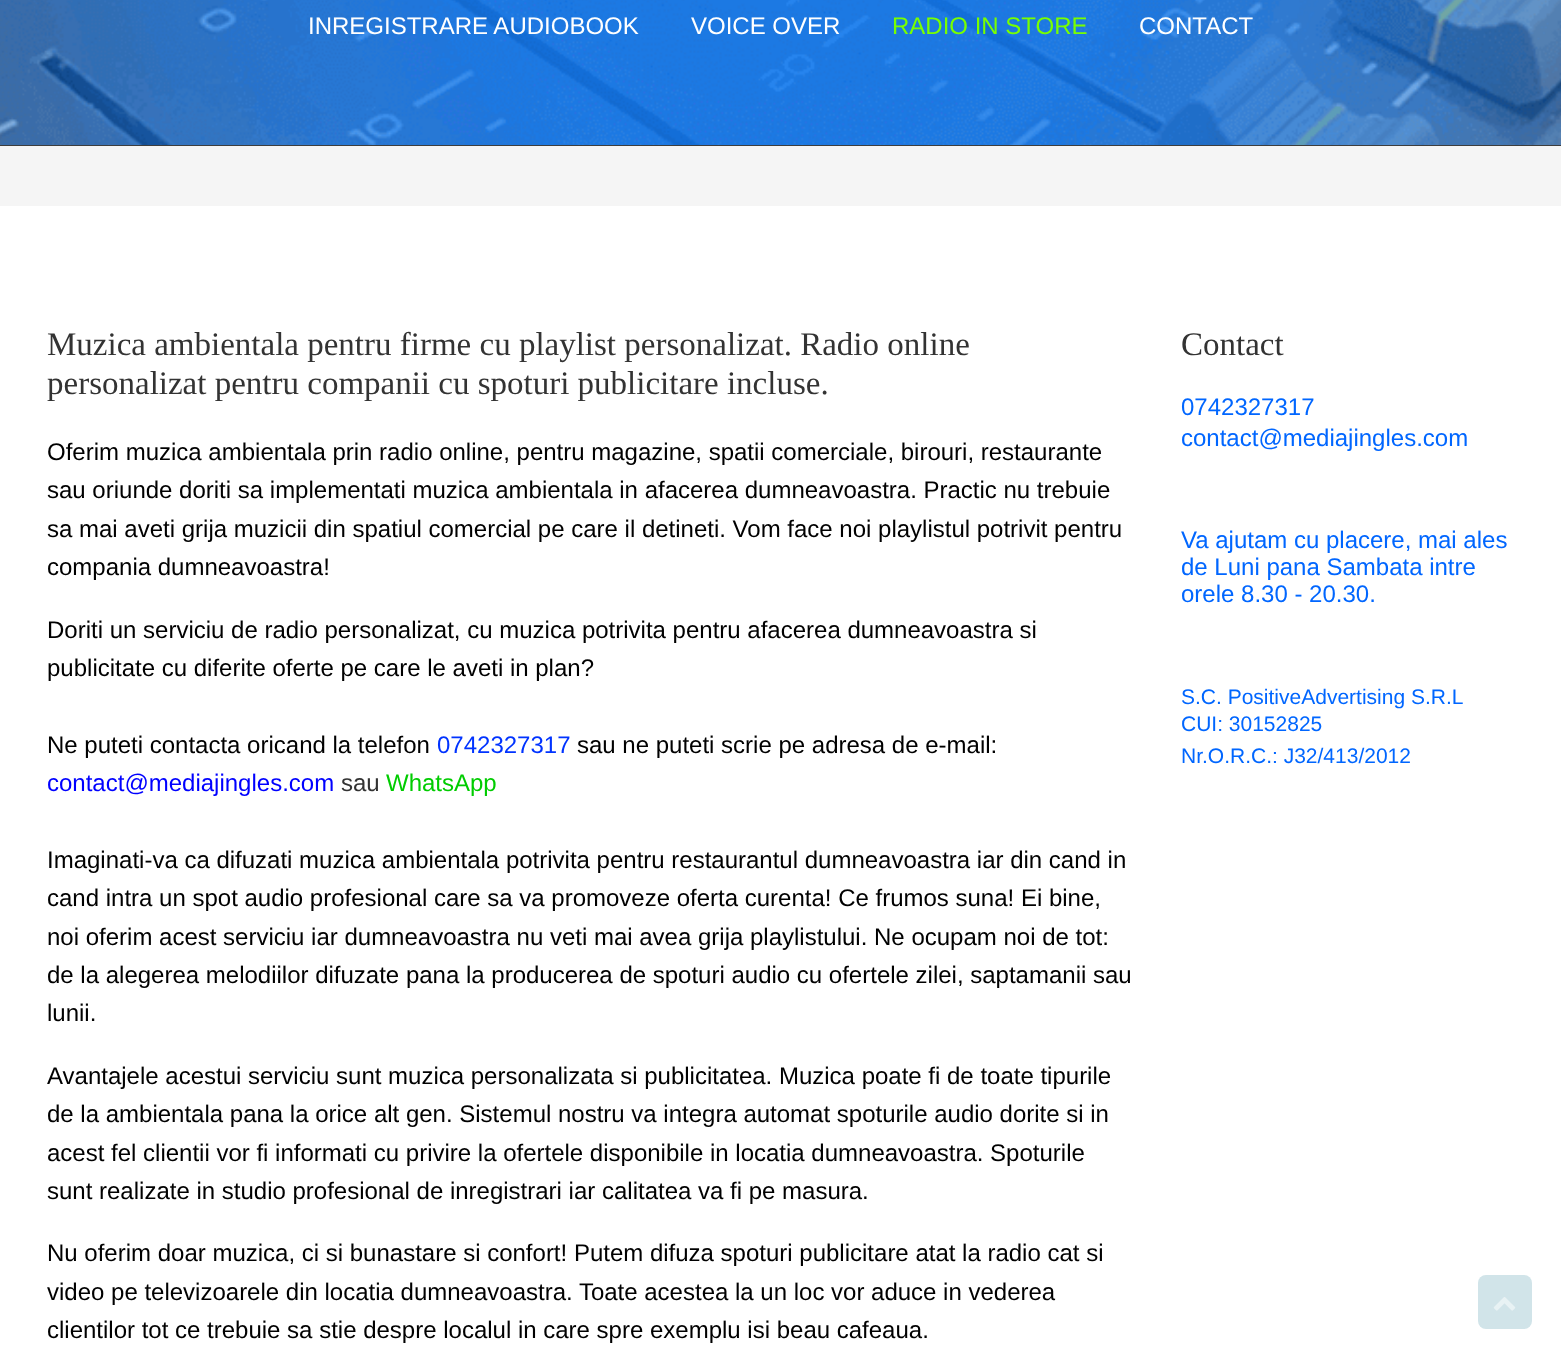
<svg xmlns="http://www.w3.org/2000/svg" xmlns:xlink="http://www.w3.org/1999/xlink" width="1561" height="1359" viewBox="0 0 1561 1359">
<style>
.cls-1{font:24px Liberation Sans;fill:#ffffff}
.cls-2{font:24px Liberation Sans;fill:#78ff00}
.cls-3{font:33px Liberation Serif;fill:#333333}
.cls-4{font:24px Liberation Sans;fill:#000000}
.cls-5{font:24px Liberation Sans;fill:#0033ff}
.cls-6{font:24px Liberation Sans;fill:#0000ff}
.cls-7{font:24px Liberation Sans;fill:#333333}
.cls-8{font:24px Liberation Sans;fill:#00cc00}
.cls-9{font:24px Liberation Sans;fill:#0066ff}
.cls-10{font:21px Liberation Sans;fill:#0066ff}
</style>
<rect width="100%" height="100%" fill="#f5f5f5"/>
<rect fill="#3d3d3d" x="0" y="145" width="1561" height="1"/>
<image xlink:href="image0.png" x="0" y="0" width="1561" height="145"/>
<rect fill="#ffffff" x="0" y="206" width="1561" height="1153"/>
<rect fill="#d1e4e9" x="1478" y="1275" width="54" height="54" rx="8"/>
<image xlink:href="image1.png" x="1493" y="1297" width="23" height="14"/>
<text class="cls-1" x="308" y="34">INREGISTRARE AUDIOBOOK</text>
<text class="cls-1" x="691" y="34">VOICE OVER</text>
<text class="cls-2" x="892" y="34">RADIO IN STORE</text>
<text class="cls-1" x="1139" y="34">CONTACT</text>
<text class="cls-3"><tspan x="47" y="355">Muzica ambientala pentru firme cu playlist personalizat. Radio online</tspan><tspan x="47" y="394">personalizat pentru companii cu spoturi publicitare incluse.</tspan></text>
<text class="cls-4"><tspan x="47" y="460">Oferim muzica ambientala prin radio online, pentru magazine, spatii comerciale, birouri, restaurante</tspan><tspan x="47" y="498">sau oriunde doriti sa implementati muzica ambientala in afacerea dumneavoastra. Practic nu trebuie</tspan><tspan x="47" y="537">sa mai aveti grija muzicii din spatiul comercial pe care il detineti. Vom face noi playlistul potrivit pentru</tspan><tspan x="47" y="575">compania dumneavoastra!</tspan></text>
<text class="cls-4"><tspan x="47" y="638">Doriti un serviciu de radio personalizat, cu muzica potrivita pentru afacerea dumneavoastra si</tspan><tspan x="47" y="676">publicitate cu diferite oferte pe care le aveti in plan?</tspan></text>
<text class="cls-4" x="47" y="753">Ne puteti contacta oricand la telefon</text>
<text class="cls-5" x="437" y="753">0742327317</text>
<text class="cls-4" x="577" y="753">sau ne puteti scrie pe adresa de e-mail:</text>
<text class="cls-6" x="47" y="791">contact@mediajingles.com</text>
<text class="cls-7" x="341" y="791">sau</text>
<text class="cls-8" x="386" y="791">WhatsApp</text>
<text class="cls-4"><tspan x="47" y="868">Imaginati-va ca difuzati muzica ambientala potrivita pentru restaurantul dumneavoastra iar din cand in</tspan><tspan x="47" y="906">cand intra un spot audio profesional care sa va promoveze oferta curenta! Ce frumos suna! Ei bine,</tspan><tspan x="47" y="945">noi oferim acest serviciu iar dumneavoastra nu veti mai avea grija playlistului. Ne ocupam noi de tot:</tspan><tspan x="47" y="983">de la alegerea melodiilor difuzate pana la producerea de spoturi audio cu ofertele zilei, saptamanii sau</tspan><tspan x="47" y="1021">lunii.</tspan></text>
<text class="cls-4"><tspan x="47" y="1084">Avantajele acestui serviciu sunt muzica personalizata si publicitatea. Muzica poate fi de toate tipurile</tspan><tspan x="47" y="1122">de la ambientala pana la orice alt gen. Sistemul nostru va integra automat spoturile audio dorite si in</tspan><tspan x="47" y="1161">acest fel clientii vor fi informati cu privire la ofertele disponibile in locatia dumneavoastra. Spoturile</tspan><tspan x="47" y="1199">sunt realizate in studio profesional de inregistrari iar calitatea va fi pe masura.</tspan></text>
<text class="cls-4"><tspan x="47" y="1261">Nu oferim doar muzica, ci si bunastare si confort! Putem difuza spoturi publicitare atat la radio cat si</tspan><tspan x="47" y="1300">video pe televizoarele din locatia dumneavoastra. Toate acestea la un loc vor aduce in vederea</tspan><tspan x="47" y="1338">clientilor tot ce trebuie sa stie despre localul in care spre exemplu isi beau cafeaua.</tspan></text>
<text class="cls-3" x="1181" y="355">Contact</text>
<text class="cls-9"><tspan x="1181" y="415">0742327317</tspan><tspan x="1181" y="446">contact@mediajingles.com</tspan></text>
<text class="cls-9"><tspan x="1181" y="548">Va ajutam cu placere, mai ales</tspan><tspan x="1181" y="575">de Luni pana Sambata intre</tspan><tspan x="1181" y="602">orele 8.30 - 20.30.</tspan></text>
<text class="cls-10"><tspan x="1181" y="704">S.C. PositiveAdvertising S.R.L</tspan><tspan x="1181" y="731">CUI: 30152825</tspan><tspan x="1181" y="763">Nr.O.R.C.: J32/413/2012</tspan></text>
</svg>
